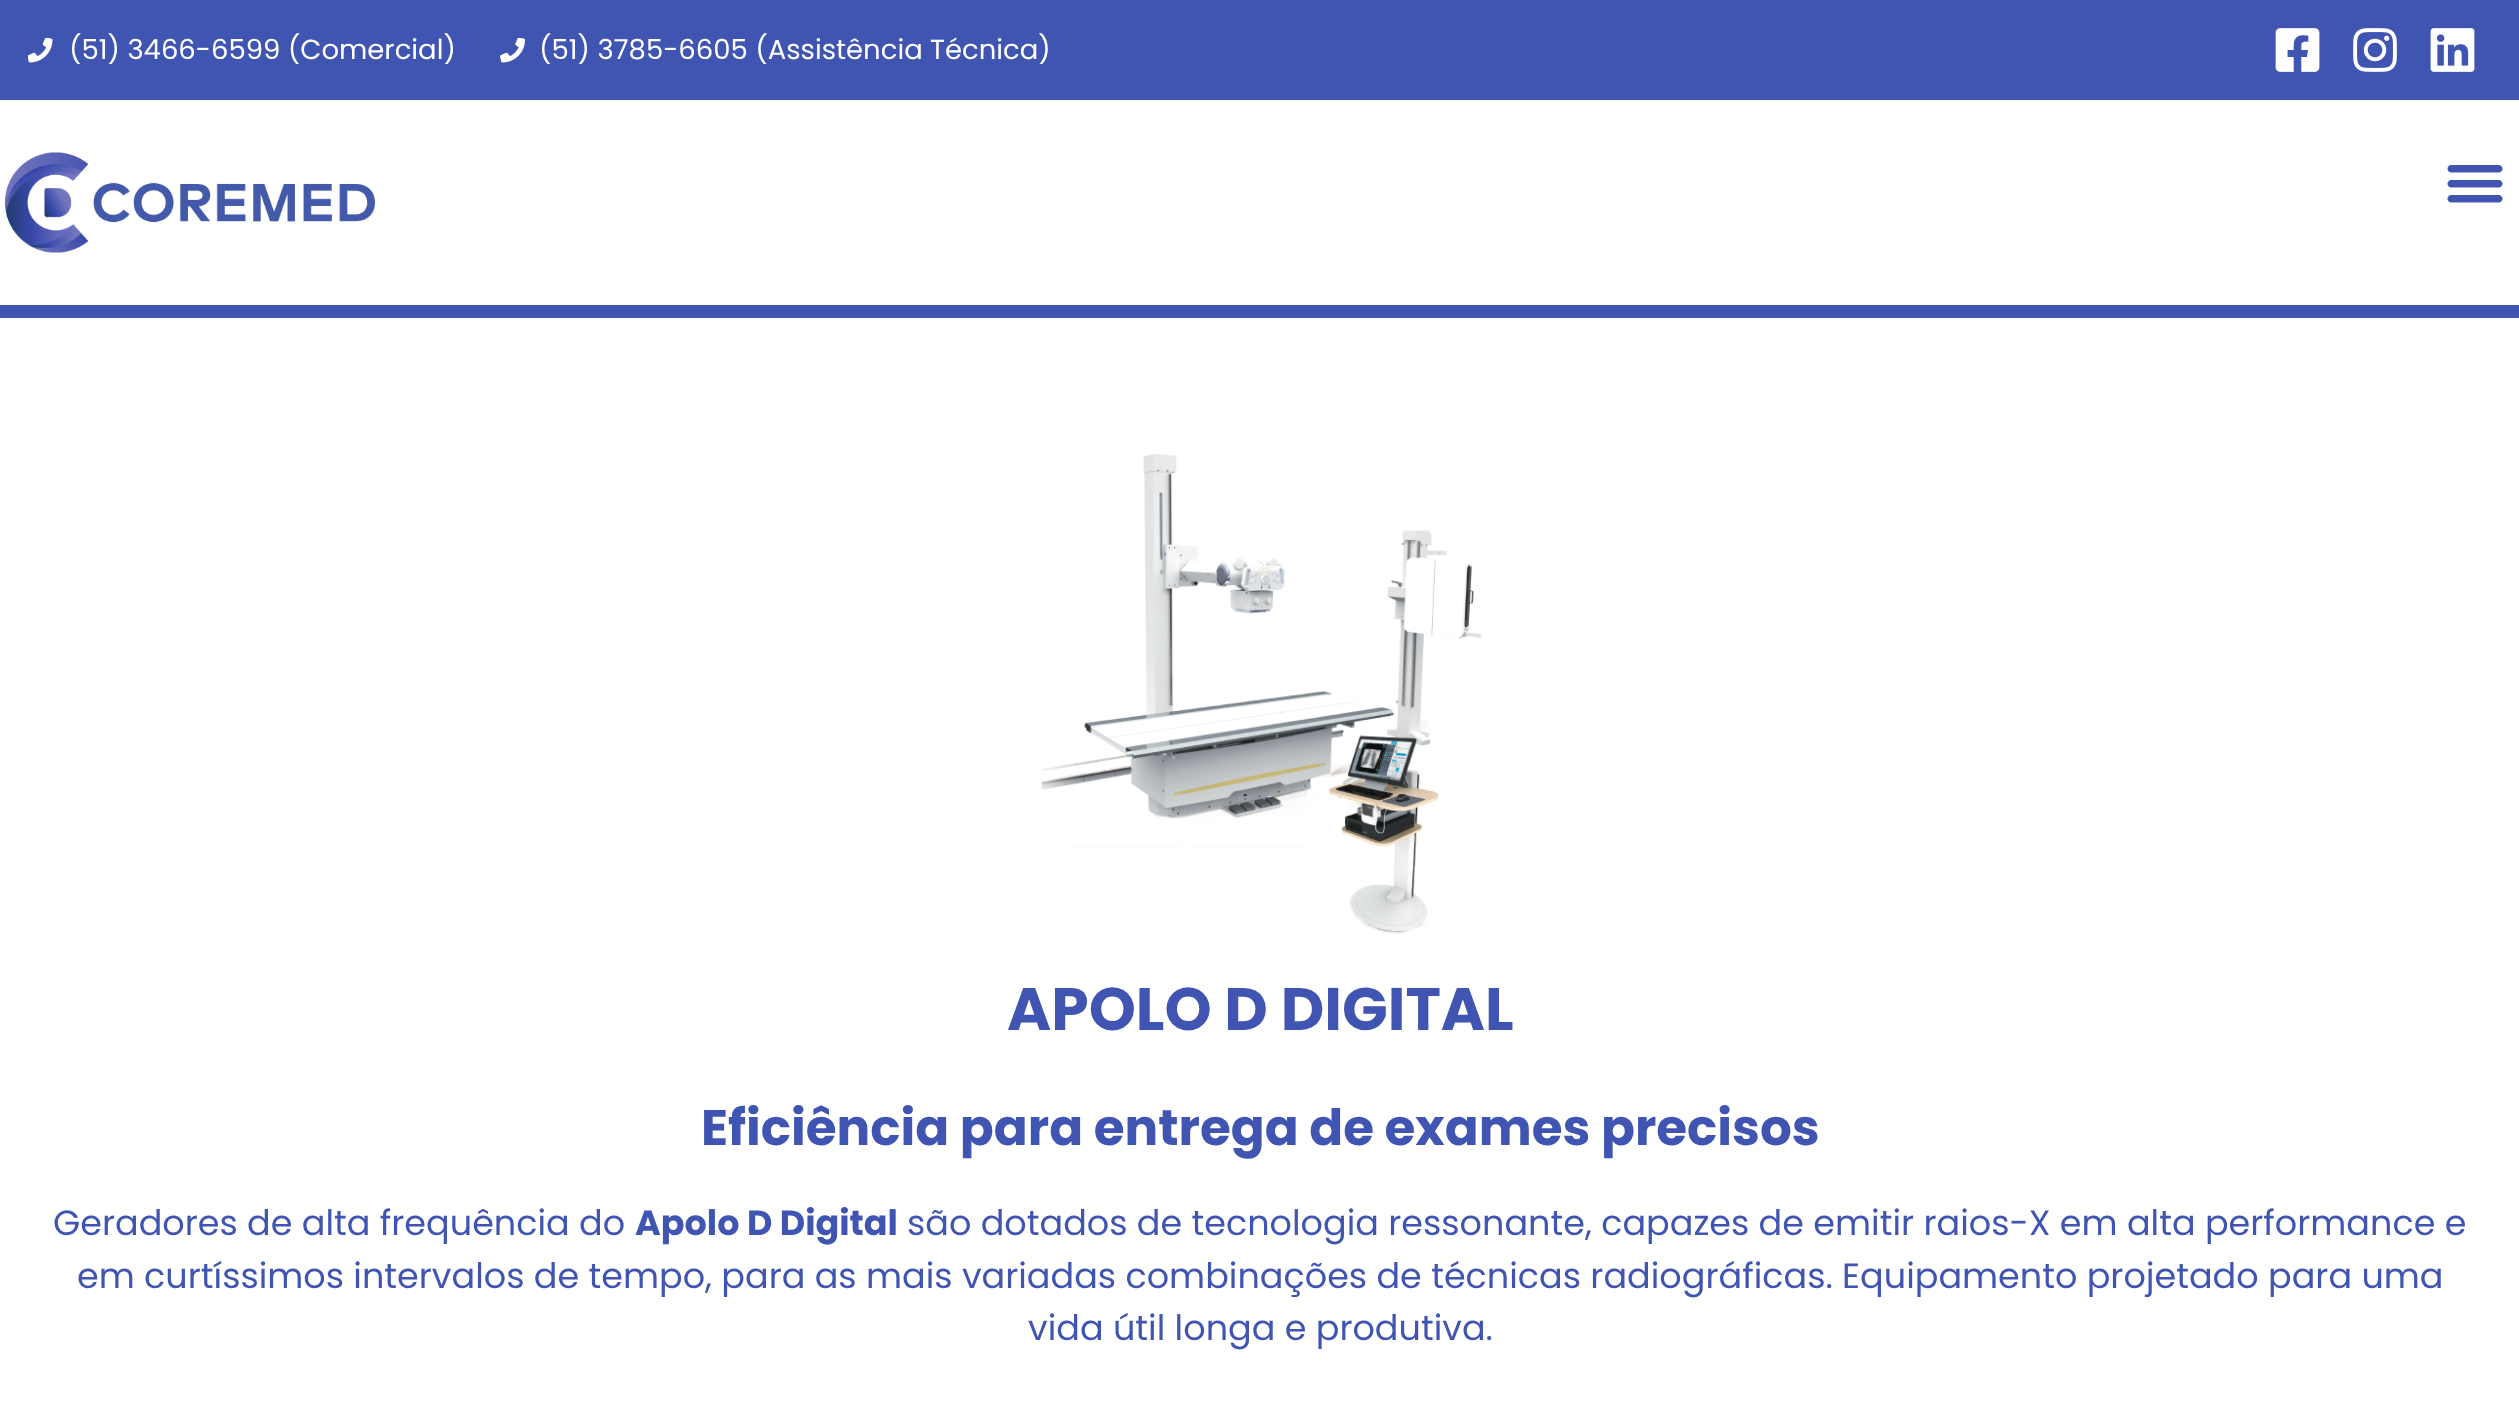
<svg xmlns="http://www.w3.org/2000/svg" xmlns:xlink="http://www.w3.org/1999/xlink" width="2519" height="1420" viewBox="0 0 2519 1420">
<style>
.cls-1{font:27.5px Poppins;fill:#ffffff}
.cls-2{font:bold 60px Poppins;fill:#4054b2}
.cls-3{font:bold 50px Poppins;fill:#4054b2}
.cls-4{font:35px Poppins;fill:#4054b2}
.cls-5{font:bold 35px Poppins;fill:#4054b2}
</style>
<rect width="100%" height="100%" fill="#ffffff"/>
<rect fill="#4054b2" x="0" y="0" width="2519" height="100"/>
<image xlink:href="image0.png" x="28" y="38" width="25" height="25"/>
<image xlink:href="image1.png" x="500" y="38" width="25" height="25"/>
<image xlink:href="image2.png" x="2275" y="28" width="45" height="44"/>
<image xlink:href="image3.png" x="2353" y="28" width="44" height="44"/>
<image xlink:href="image4.png" x="2430" y="28" width="45" height="44"/>
<image xlink:href="image5.png" x="5" y="152" width="370" height="101"/>
<image xlink:href="image6.png" x="2447" y="165" width="56" height="38"/>
<rect fill="#4054b2" x="0" y="305" width="2519" height="13"/>
<image xlink:href="image7.png" x="1041" y="454" width="441" height="480"/>
<text class="cls-1" x="69" y="59">(51) 3466-6599 (Comercial)</text>
<text class="cls-1" x="539" y="59">(51) 3785-6605 (Assistência Técnica)</text>
<text class="cls-2" x="1007" y="1030">APOLO D DIGITAL</text>
<text class="cls-3" x="701" y="1145">Eficiência para entrega de exames precisos</text>
<text class="cls-4" x="53" y="1235">Geradores de alta frequência do</text>
<text class="cls-5" x="635" y="1235">Apolo D Digital</text>
<text class="cls-4" x="907" y="1235">são dotados de tecnologia ressonante, capazes de emitir raios-X em alta performance e</text>
<text class="cls-4" x="77" y="1288">em curtíssimos intervalos de tempo, para as mais variadas combinações de técnicas radiográficas. Equipamento projetado para uma</text>
<text class="cls-4" x="1028" y="1340">vida útil longa e produtiva.</text>
</svg>
